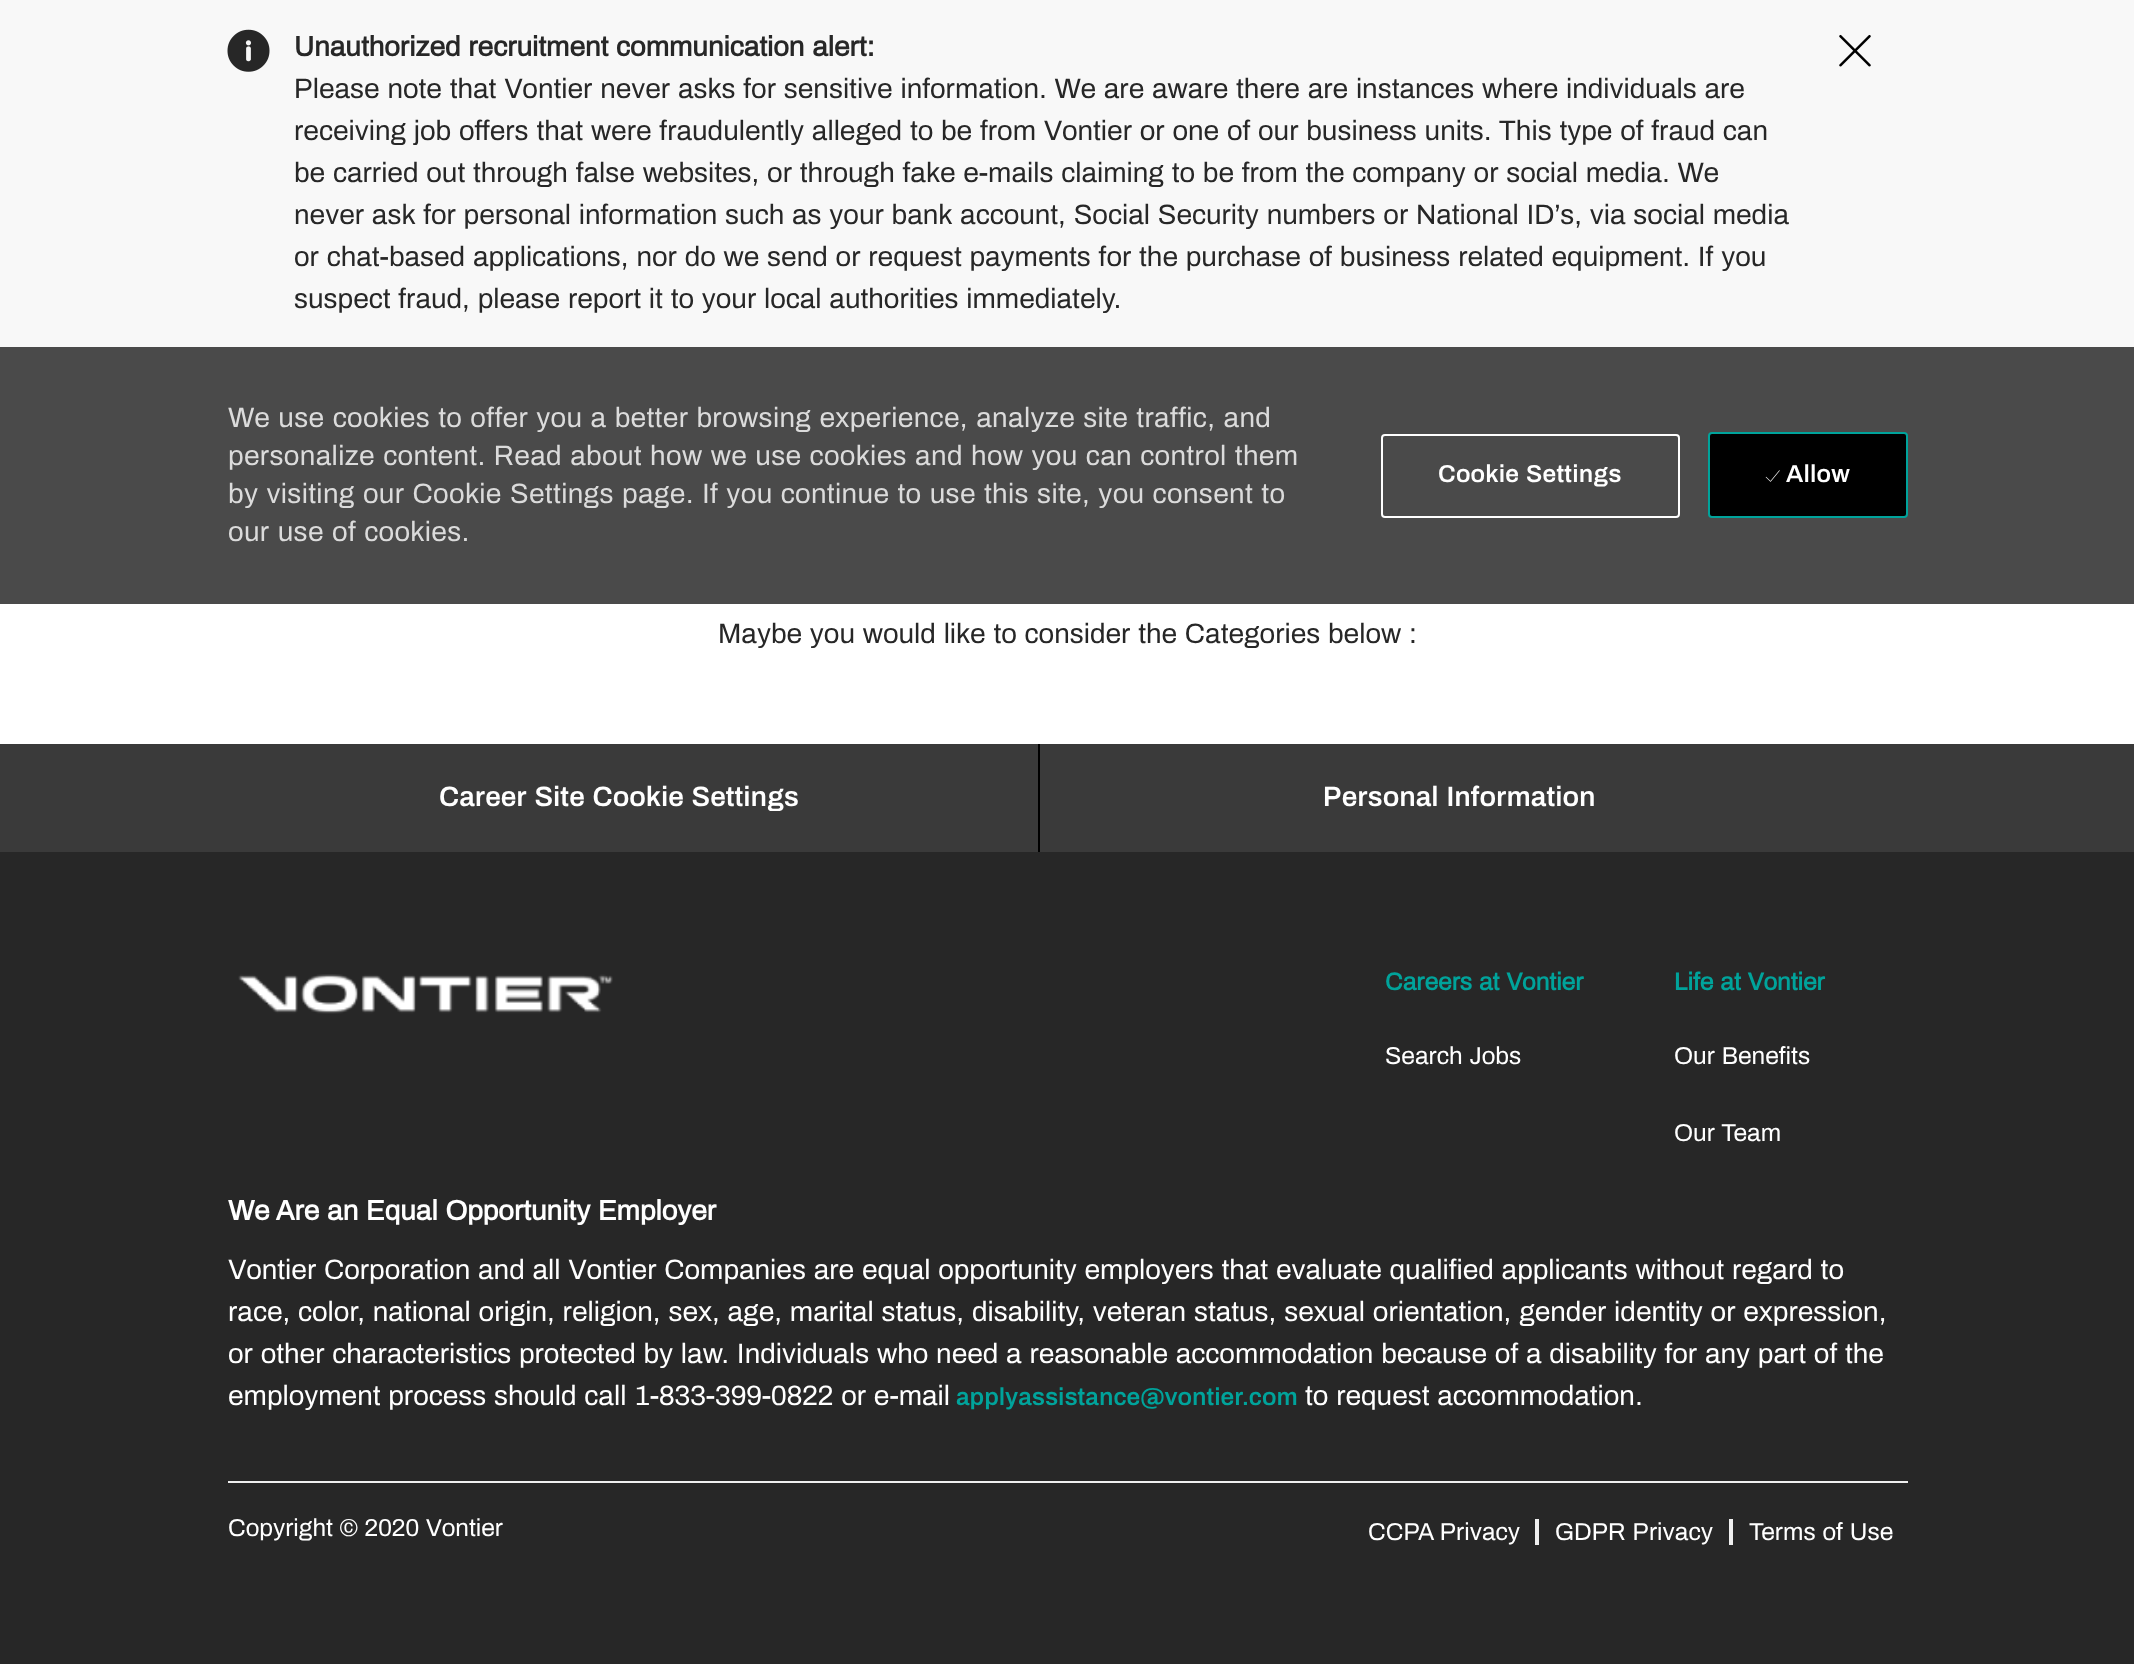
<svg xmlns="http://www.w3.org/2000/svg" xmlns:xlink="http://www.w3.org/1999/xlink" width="2134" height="1664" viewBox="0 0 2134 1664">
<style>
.cls-1{font:bold 28px Archivo;fill:#272727}
.cls-2{font:28px Archivo;fill:#272727}
.cls-3{font:28px Archivo;letter-spacing:0.35px;fill:#dbdbdb}
.cls-4{font:600 24.5px Archivo;letter-spacing:0.2px;fill:#ffffff}
.cls-5{font:600 28px Archivo;fill:#ffffff}
.cls-6{font:bold 24.5px Archivo;fill:#00a39b}
.cls-7{font:24.5px Archivo;fill:#ffffff}
.cls-8{font:bold 28px Archivo;fill:#ffffff}
.cls-9{font:28px Archivo;fill:#ffffff}
.cls-10{font:600 24.5px Archivo;fill:#00a39b}
</style>
<rect width="100%" height="100%" fill="#ffffff"/>
<rect fill="#f8f8f8" x="0" y="0" width="2134" height="347"/>
<image xlink:href="image0.png" x="227" y="29" width="43" height="43"/>
<image xlink:href="image1.png" x="1839" y="34" width="32" height="33"/>
<rect fill="#4a4a4a" x="0" y="347" width="2134" height="257"/>
<rect fill="none" stroke="#ffffff" stroke-width="2" x="1382" y="435" width="297" height="82" rx="3"/>
<rect fill="#000000" stroke="#00a39b" stroke-width="2" x="1709" y="433" width="198" height="84" rx="3"/>
<image xlink:href="image2.png" x="1765" y="470" width="15" height="12"/>
<rect fill="#3a3a3a" x="0" y="744" width="2134" height="108"/>
<rect fill="#000000" x="1038" y="744" width="2" height="108"/>
<rect fill="#272727" x="0" y="852" width="2134" height="812"/>
<image xlink:href="image3.png" x="238" y="974" width="375" height="40"/>
<rect fill="#efefef" x="228" y="1481" width="1680" height="2"/>
<rect fill="#efefef" x="1535" y="1519" width="4" height="26"/>
<rect fill="#efefef" x="1729" y="1519" width="4" height="26"/>
<text class="cls-1" x="294" y="56">Unauthorized recruitment communication alert:</text>
<text class="cls-2"><tspan x="294" y="98">Please note that Vontier never asks for sensitive information. We are aware there are instances where individuals are</tspan><tspan x="294" y="140">receiving job offers that were fraudulently alleged to be from Vontier or one of our business units. This type of fraud can</tspan><tspan x="294" y="182">be carried out through false websites, or through fake e-mails claiming to be from the company or social media. We</tspan><tspan x="294" y="224">never ask for personal information such as your bank account, Social Security numbers or National ID’s, via social media</tspan><tspan x="294" y="266">or chat-based applications, nor do we send or request payments for the purchase of business related equipment. If you</tspan><tspan x="294" y="308">suspect fraud, please report it to your local authorities immediately.</tspan></text>
<text class="cls-3"><tspan x="228" y="427">We use cookies to offer you a better browsing experience, analyze site traffic, and</tspan><tspan x="228" y="465">personalize content. Read about how we use cookies and how you can control them</tspan><tspan x="228" y="503">by visiting our Cookie Settings page. If you continue to use this site, you consent to</tspan><tspan x="228" y="541">our use of cookies.</tspan></text>
<text class="cls-4" x="1438" y="482">Cookie Settings</text>
<text class="cls-4" x="1786" y="482">Allow</text>
<text class="cls-2" x="718" y="643">Maybe you would like to consider the Categories below :</text>
<text class="cls-5" x="439" y="806">Career Site Cookie Settings</text>
<text class="cls-5" x="1323" y="806">Personal Information</text>
<text class="cls-6" x="1385" y="990">Careers at Vontier</text>
<text class="cls-7" x="1385" y="1064">Search Jobs</text>
<text class="cls-6" x="1674" y="990">Life at Vontier</text>
<text class="cls-7" x="1674" y="1064">Our Benefits</text>
<text class="cls-7" x="1674" y="1141">Our Team</text>
<text class="cls-8" x="228" y="1220">We Are an Equal Opportunity Employer</text>
<text class="cls-9"><tspan x="228" y="1279">Vontier Corporation and all Vontier Companies are equal opportunity employers that evaluate qualified applicants without regard to</tspan><tspan x="228" y="1321">race, color, national origin, religion, sex, age, marital status, disability, veteran status, sexual orientation, gender identity or expression,</tspan><tspan x="228" y="1363">or other characteristics protected by law. Individuals who need a reasonable accommodation because of a disability for any part of the</tspan><tspan x="228" y="1405">employment process should call 1-833-399-0822 or e-mail</tspan></text>
<text class="cls-10" x="956" y="1405">applyassistance@vontier.com</text>
<text class="cls-9" x="1305" y="1405">to request accommodation.</text>
<text class="cls-7" x="228" y="1536">Copyright © 2020 Vontier</text>
<text class="cls-7" x="1368" y="1540">CCPA Privacy</text>
<text class="cls-7" x="1555" y="1540">GDPR Privacy</text>
<text class="cls-7" x="1749" y="1540">Terms of Use</text>
</svg>
